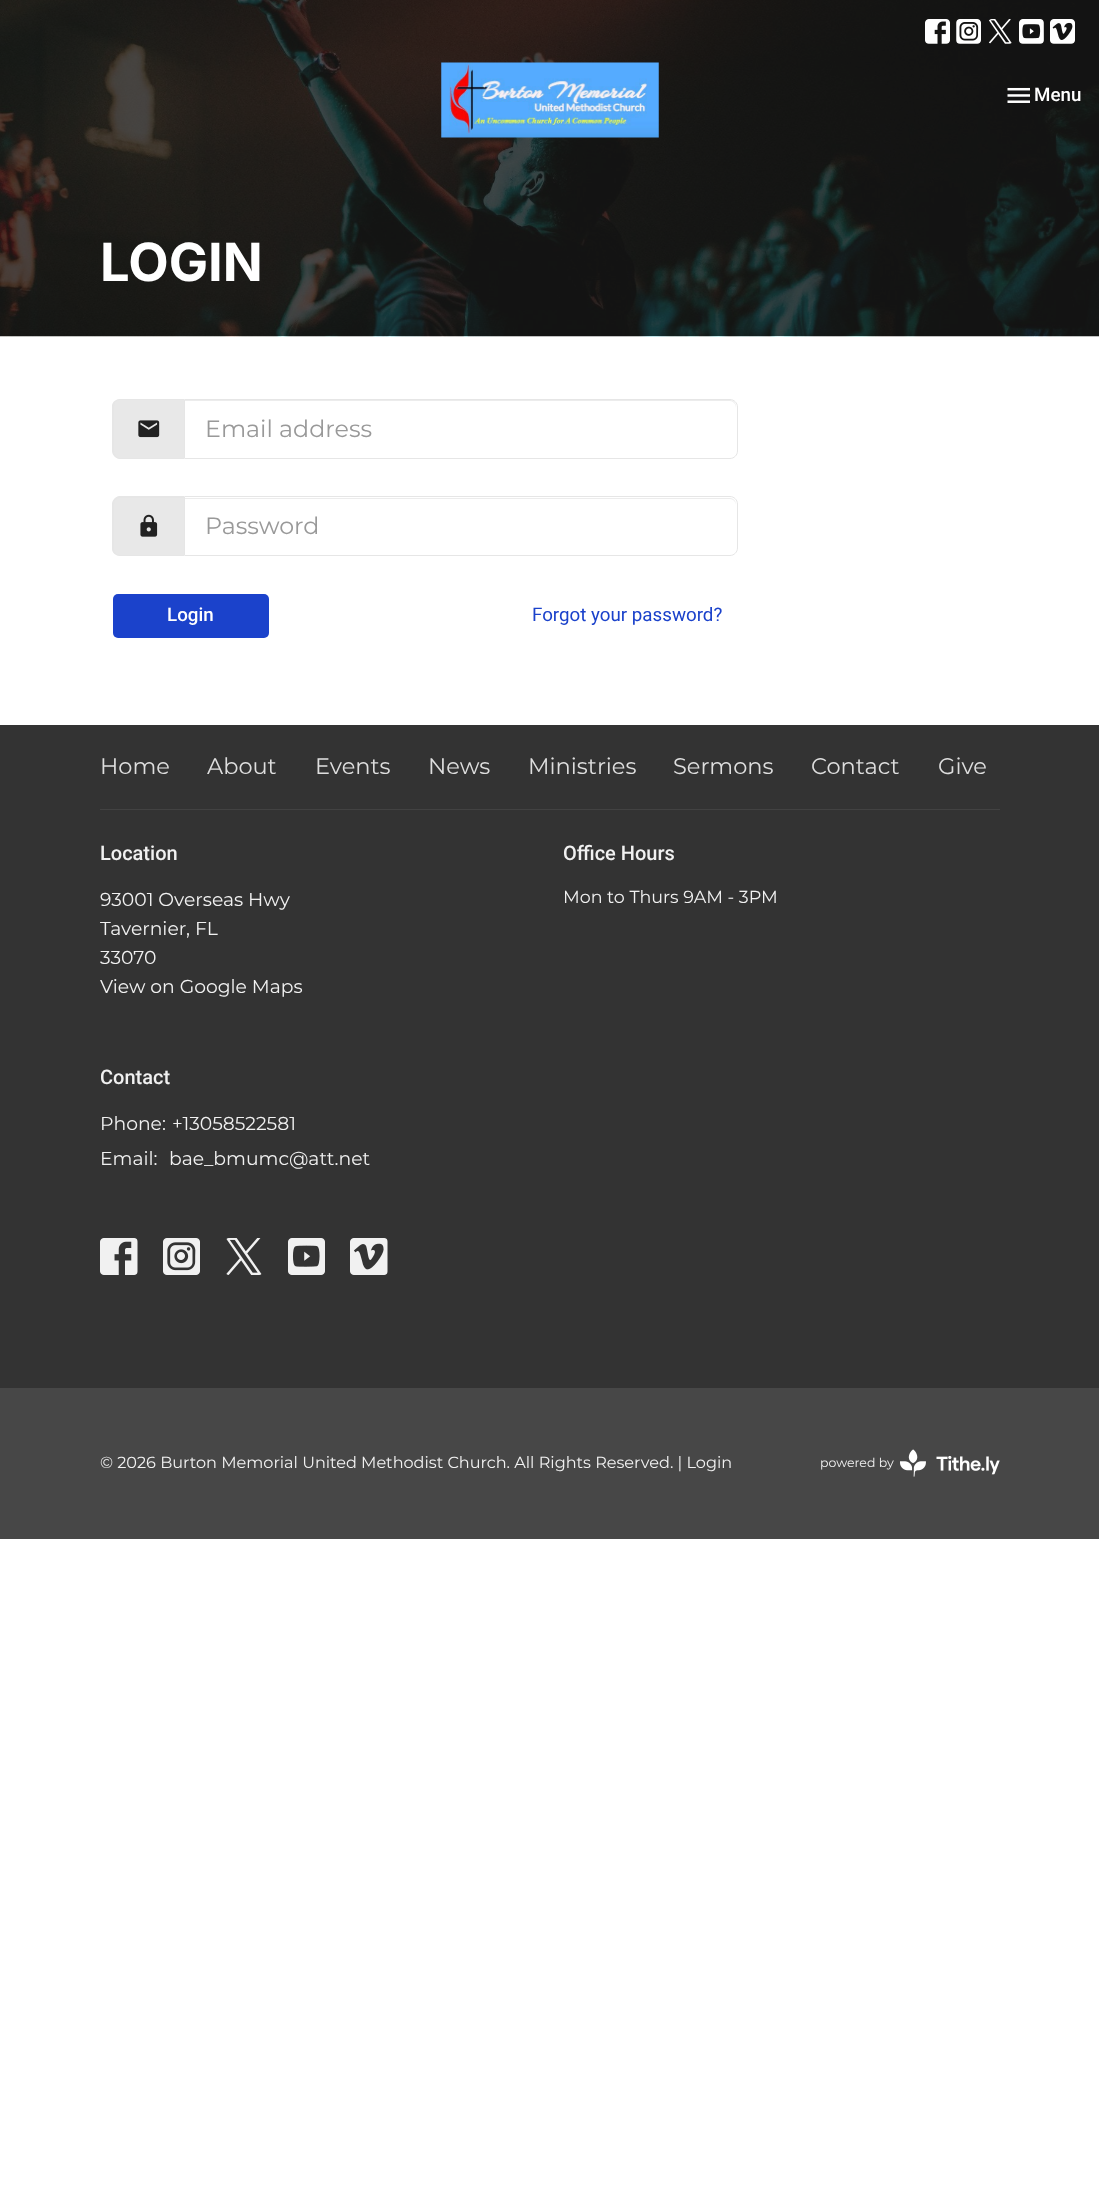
<svg xmlns="http://www.w3.org/2000/svg" xmlns:xlink="http://www.w3.org/1999/xlink" width="1099" height="2207" viewBox="0 0 1099 2207">
<style>
.cls-1{font:500 18.75px Roboto;fill:#ffffff}
.cls-2{font:bold 52.5px Inter;fill:#ffffff}
.cls-3{font:23.75px Montserrat;fill:#999999}
.cls-4{font:18.75px Roboto;fill:#1b42cb}
.cls-5{font:22.5px Montserrat;fill:#dedede}
.cls-6{font:500 20px Roboto;fill:#f1f1f1}
.cls-7{font:18.75px Montserrat;fill:#f1f1f1}
.cls-8{font:17.5px Montserrat;fill:#f1f1f1}
.cls-9{font:16.1px Montserrat;fill:#f1f1f1}
.cls-10{font:12.5px Montserrat;fill:#f1f1f1}
</style>
<rect width="100%" height="100%" fill="#ffffff"/>
<image xlink:href="image7.png" x="0" y="0" width="1099" height="337"/>
<image xlink:href="image0.png" x="925" y="19" width="25" height="25"/>
<image xlink:href="image1.png" x="956" y="19" width="25" height="25"/>
<image xlink:href="image2.png" x="988" y="19" width="24" height="25"/>
<image xlink:href="image3.png" x="1019" y="19" width="25" height="25"/>
<image xlink:href="image4.png" x="1050" y="19" width="25" height="25"/>
<image xlink:href="image5.png" x="441" y="62" width="218" height="76"/>
<image xlink:href="image6.png" x="1007" y="87" width="23" height="16"/>
<path fill="#e8e8e8" d="M121 399H184V459H121C116.5 459 113 455.5 113 451V407C113 402.5 116.5 399 121 399Z"/>
<path fill="#e6e6e6" fill-rule="evenodd" d="M120 399H184V459H120C116 459 112 455 112 451V406C112 402 116 399 120 399ZM120 400H184V458H120C117 458 114 455 114 451V406C114 403 117 400 120 400Z"/>
<image xlink:href="image8.png" x="138" y="420" width="22" height="18"/>
<path fill="#ececec" d="M185 401H730C733 401 736 404 736 408V406C736 403 733 400 730 400H185Z"/>
<path fill="none" stroke="#e6e6e6" d="M184.5 399.5H730C734 399.5 737.5 403 737.5 407V451C737.5 455 734 458.5 730 458.5H184.5Z"/>
<path fill="#e8e8e8" d="M121 496H184V556H121C116.5 556 113 552.5 113 548V504C113 499.5 116.5 496 121 496Z"/>
<path fill="#e6e6e6" fill-rule="evenodd" d="M120 496H184V556H120C116 556 112 553 112 549V504C112 500 116 496 120 496ZM120 498H184V555H120C117 555 114 552 114 549V504C114 500 117 498 120 498Z"/>
<image xlink:href="image9.png" x="140" y="514" width="18" height="23"/>
<path fill="#ececec" d="M185 499H730C733 499 736 502 736 505V504C736 501 733 498 730 498H185Z"/>
<path fill="none" stroke="#e6e6e6" d="M184.5 496.5H730C734 496.5 737.5 500 737.5 504V548C737.5 552 734 555.5 730 555.5H184.5Z"/>
<rect fill="#1b42cb" x="113" y="594" width="156" height="44" rx="5"/>
<rect fill="#333333" x="0" y="725" width="1099" height="663"/>
<rect fill="#424242" x="100" y="809" width="900" height="1"/>
<image xlink:href="image10.png" x="100" y="1238" width="38" height="37"/>
<image xlink:href="image11.png" x="163" y="1238" width="37" height="37"/>
<image xlink:href="image12.png" x="226" y="1238" width="36" height="37"/>
<image xlink:href="image13.png" x="288" y="1238" width="37" height="37"/>
<image xlink:href="image14.png" x="350" y="1238" width="38" height="37"/>
<rect fill="#474747" x="0" y="1388" width="1099" height="151"/>
<image xlink:href="image15.png" x="900" y="1449" width="100" height="28"/>
<text class="cls-1" x="1034" y="101">Menu</text>
<text class="cls-2" x="100" y="281">LOGIN</text>
<text class="cls-3" x="205" y="437">Email address</text>
<text class="cls-3" x="205" y="534">Password</text>
<text class="cls-1" x="167" y="621">Login</text>
<text class="cls-4" x="532" y="621">Forgot your password?</text>
<text class="cls-5" x="100" y="774">Home</text>
<text class="cls-5" x="207" y="774">About</text>
<text class="cls-5" x="315" y="774">Events</text>
<text class="cls-5" x="428" y="774">News</text>
<text class="cls-5" x="528" y="774">Ministries</text>
<text class="cls-5" x="673" y="774">Sermons</text>
<text class="cls-5" x="811" y="774">Contact</text>
<text class="cls-5" x="938" y="774">Give</text>
<text class="cls-6" x="100" y="860">Location</text>
<text class="cls-7"><tspan x="100" y="906">93001 Overseas Hwy</tspan><tspan x="100" y="935">Tavernier, FL</tspan><tspan x="100" y="964">33070</tspan><tspan x="100" y="993">View on Google Maps</tspan></text>
<text class="cls-6" x="563" y="860">Office Hours</text>
<text class="cls-8" x="563" y="903">Mon to Thurs 9AM - 3PM</text>
<text class="cls-6" x="100" y="1084">Contact</text>
<text class="cls-7" x="100" y="1130">Phone:</text>
<text class="cls-7" x="172" y="1130">+13058522581</text>
<text class="cls-7" x="100" y="1165">Email:</text>
<text class="cls-7" x="169" y="1165">bae_bmumc@att.net</text>
<text class="cls-9" x="100" y="1468">© 2026 Burton Memorial United Methodist Church. All Rights Reserved. | Login</text>
<text class="cls-10" x="820" y="1467">powered by</text>
</svg>
